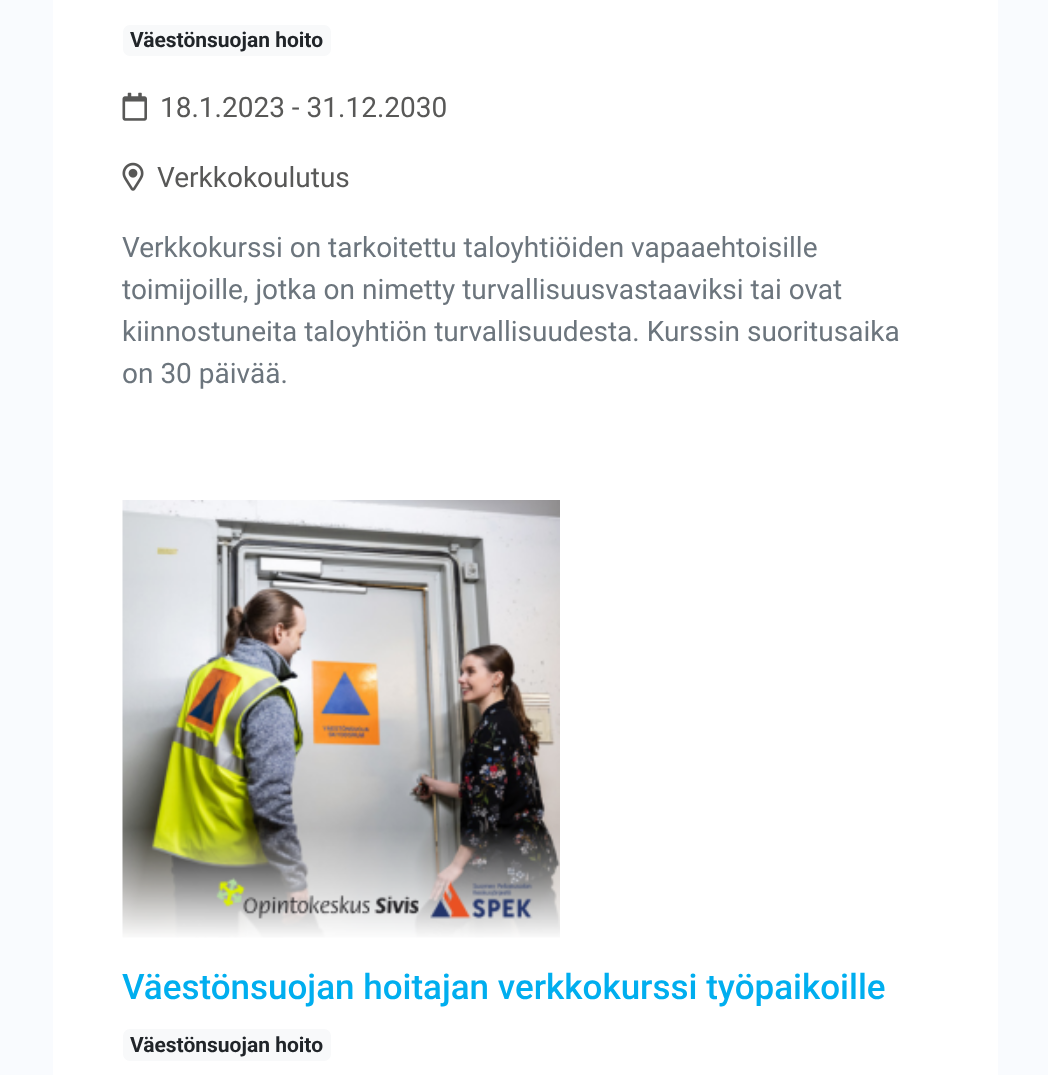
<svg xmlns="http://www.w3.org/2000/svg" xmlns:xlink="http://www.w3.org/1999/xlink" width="1048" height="1075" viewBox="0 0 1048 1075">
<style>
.cls-1{font:bold 21px Roboto;fill:#212529}
.cls-2{font:28px Roboto;fill:#585857}
.cls-3{font:28px Roboto;fill:#6c757d}
.cls-4{font:500 35px Roboto;fill:#00aeef}
</style>
<rect width="100%" height="100%" fill="#f9fbfe"/>
<rect fill="#ffffff" x="53" y="0" width="945" height="1075"/>
<rect fill="#f8f9fa" x="123" y="25" width="208" height="31" rx="7"/>
<image xlink:href="image0.png" x="122" y="92" width="25" height="29"/>
<image xlink:href="image1.png" x="122" y="162" width="22" height="29"/>
<image xlink:href="image2.png" x="122" y="500" width="438" height="438"/>
<rect fill="#f8f9fa" x="123" y="1029" width="208" height="32" rx="7"/>
<text class="cls-1" x="130" y="47">Väestönsuojan hoito</text>
<text class="cls-2" x="160" y="117">18.1.2023 - 31.12.2030</text>
<text class="cls-2" x="157" y="187">Verkkokoulutus</text>
<text class="cls-3"><tspan x="122" y="257">Verkkokurssi on tarkoitettu taloyhtiöiden vapaaehtoisille</tspan><tspan x="122" y="299">toimijoille, jotka on nimetty turvallisuusvastaaviksi tai ovat</tspan><tspan x="122" y="341">kiinnostuneita taloyhtiön turvallisuudesta. Kurssin suoritusaika</tspan><tspan x="122" y="383">on 30 päivää.</tspan></text>
<text class="cls-4" x="122" y="999">Väestönsuojan hoitajan verkkokurssi työpaikoille</text>
<text class="cls-1" x="130" y="1052">Väestönsuojan hoito</text>
</svg>
